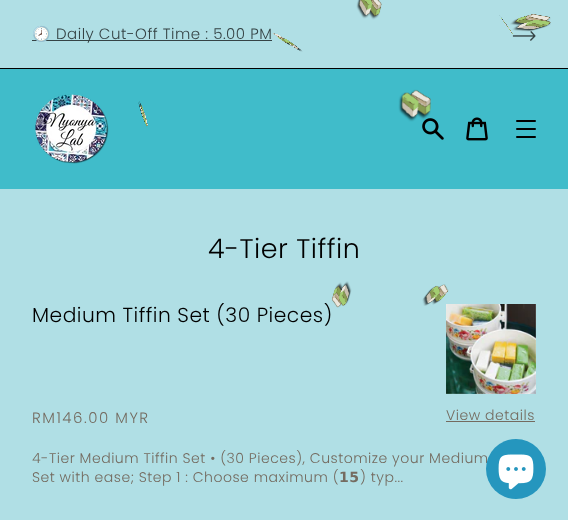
<svg xmlns="http://www.w3.org/2000/svg" xmlns:xlink="http://www.w3.org/1999/xlink" width="568" height="520" viewBox="0 0 568 520">
<style>
.cls-1{font:15px Noto Color Emoji;letter-spacing:0.5px;fill:#354345}
.cls-2{font:300 15px Poppins;letter-spacing:0.5px;fill:#354345}
.cls-3{font:300 27px Poppins;letter-spacing:0.5px;fill:#000000}
.cls-4{font:300 20.25px Poppins;letter-spacing:0.5px;fill:#000000}
.cls-5{font:300 15px Poppins;letter-spacing:1.5px;fill:#746b60}
.cls-6{font:300 14.05px Poppins;letter-spacing:0.5px;fill:#746b60}
.cls-7{font:bold 14.05px DejaVu Sans;letter-spacing:0.5px;fill:#746b60}
</style>
<rect width="100%" height="100%" fill="#b0dfe5"/>
<image xlink:href="image0.png" x="356" y="0" width="26" height="20"/>
<image xlink:href="image8.png" x="512" y="31" width="24" height="10"/>
<image xlink:href="image1.png" x="499" y="15" width="14" height="19"/>
<image xlink:href="image2.png" x="510" y="14" width="41" height="18"/>
<image xlink:href="image3.png" x="273" y="33" width="30" height="19"/>
<rect fill="#40bcca" x="0" y="69" width="568" height="120"/>
<image xlink:href="image4.png" x="138" y="101" width="10" height="26"/>
<image xlink:href="image10.png" x="422" y="118" width="22" height="22"/>
<image xlink:href="image5.png" x="398" y="89" width="33" height="33"/>
<image xlink:href="image6.png" x="332" y="281" width="20" height="27"/>
<image xlink:href="image12.png" x="446" y="304" width="90" height="90"/>
<image xlink:href="image7.png" x="422" y="284" width="27" height="22"/>
<rect fill="#000000" x="0" y="68" width="568" height="1"/>
<rect fill="#354345" x="32" y="40" width="240" height="1"/>
<image xlink:href="image9.png" x="35" y="94" width="74" height="70"/>
<image xlink:href="image11.png" x="466" y="117" width="22" height="24"/>
<rect fill="#000000" x="516" y="128" width="20" height="2" rx="1"/>
<rect fill="#000000" x="516" y="120" width="20" height="2" rx="1"/>
<rect fill="#000000" x="516" y="136" width="20" height="2" rx="1"/>
<rect fill="#746b60" x="446" y="421" width="89" height="1"/>
<text class="cls-1" x="32" y="39">🕗</text>
<text class="cls-2" x="56" y="39">Daily Cut-Off Time : 5.00 PM</text>
<text class="cls-3" x="208" y="258">4-Tier Tiffin</text>
<text class="cls-4" x="32" y="322">Medium Tiffin Set (30 Pieces)</text>
<text class="cls-5" x="32" y="423">RM146.00 MYR</text>
<text class="cls-6" x="446" y="420">View details</text>
<text class="cls-6"><tspan x="32" y="463">4-Tier Medium Tiffin Set • (30 Pieces), Customize your Medium</tspan><tspan x="32" y="482">Set with ease; Step 1 : Choose maximum (</tspan></text>
<text class="cls-7" x="339" y="482">𝟭𝟱</text>
<text class="cls-6" x="360" y="482">) typ...</text>
<circle fill="#2596be" cx="516" cy="469" r="30"/>
<image xlink:href="image13.png" x="498" y="454" width="36" height="36"/>
</svg>
